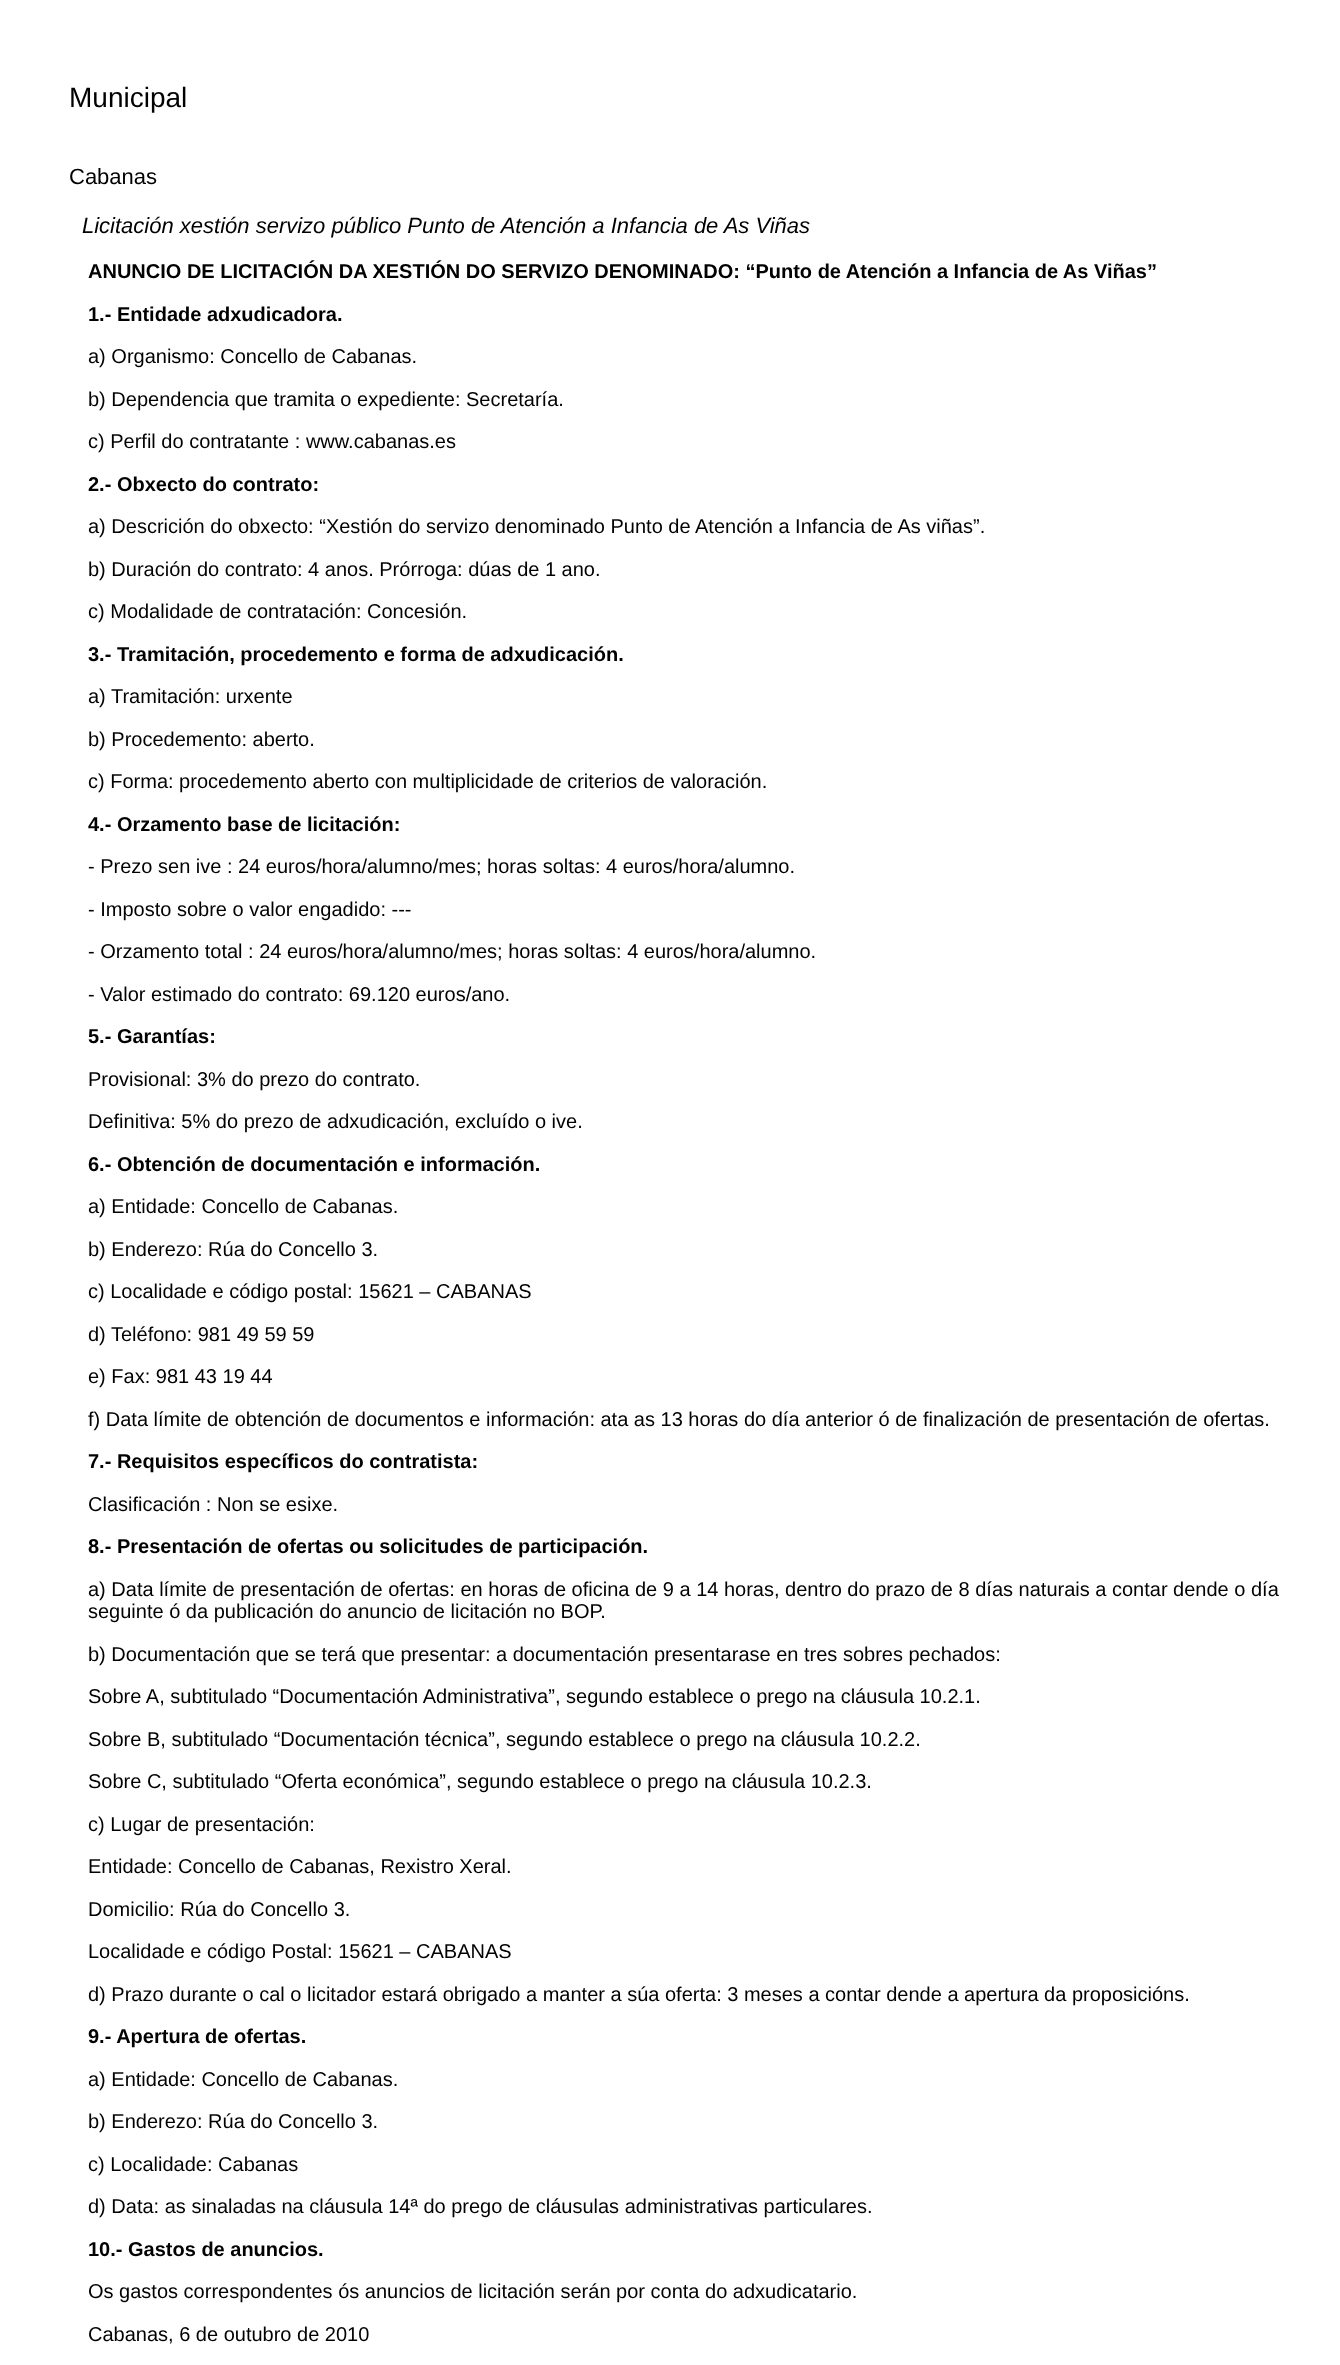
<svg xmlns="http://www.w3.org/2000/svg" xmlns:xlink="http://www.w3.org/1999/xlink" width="1340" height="2365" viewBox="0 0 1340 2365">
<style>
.cls-1{font:28px Liberation Sans;fill:#000000}
.cls-2{font:22px Liberation Sans;fill:#000000}
.cls-3{font:italic 22px Liberation Sans;fill:#000000}
.cls-4{font:bold 20px Liberation Sans;fill:#000000}
.cls-5{font:20px Liberation Sans;fill:#000000}
</style>
<rect width="100%" height="100%" fill="#ffffff"/>
<text class="cls-1" x="69" y="107">Municipal</text>
<text class="cls-2" x="69" y="184">Cabanas</text>
<text class="cls-3" x="82" y="233">Licitación xestión servizo público Punto de Atención a Infancia de As Viñas</text>
<text class="cls-4" x="88" y="278">ANUNCIO DE LICITACIÓN DA XESTIÓN DO SERVIZO DENOMINADO: “Punto de Atención a Infancia de As Viñas”</text>
<text class="cls-4" x="88" y="321">1.- Entidade adxudicadora.</text>
<text class="cls-5" x="88" y="363">a) Organismo: Concello de Cabanas.</text>
<text class="cls-5" x="88" y="406">b) Dependencia que tramita o expediente: Secretaría.</text>
<text class="cls-5" x="88" y="448">c) Perfil do contratante : www.cabanas.es</text>
<text class="cls-4" x="88" y="491">2.- Obxecto do contrato:</text>
<text class="cls-5" x="88" y="533">a) Descrición do obxecto: “Xestión do servizo denominado Punto de Atención a Infancia de As viñas”.</text>
<text class="cls-5" x="88" y="576">b) Duración do contrato: 4 anos. Prórroga: dúas de 1 ano.</text>
<text class="cls-5" x="88" y="618">c) Modalidade de contratación: Concesión.</text>
<text class="cls-4" x="88" y="661">3.- Tramitación, procedemento e forma de adxudicación.</text>
<text class="cls-5" x="88" y="703">a) Tramitación: urxente</text>
<text class="cls-5" x="88" y="746">b) Procedemento: aberto.</text>
<text class="cls-5" x="88" y="788">c) Forma: procedemento aberto con multiplicidade de criterios de valoración.</text>
<text class="cls-4" x="88" y="831">4.- Orzamento base de licitación:</text>
<text class="cls-5" x="88" y="873">- Prezo sen ive : 24 euros/hora/alumno/mes; horas soltas: 4 euros/hora/alumno.</text>
<text class="cls-5" x="88" y="916">- Imposto sobre o valor engadido: ---</text>
<text class="cls-5" x="88" y="958">- Orzamento total : 24 euros/hora/alumno/mes; horas soltas: 4 euros/hora/alumno.</text>
<text class="cls-5" x="88" y="1001">- Valor estimado do contrato: 69.120 euros/ano.</text>
<text class="cls-4" x="88" y="1043">5.- Garantías:</text>
<text class="cls-5" x="88" y="1086">Provisional: 3% do prezo do contrato.</text>
<text class="cls-5" x="88" y="1128">Definitiva: 5% do prezo de adxudicación, excluído o ive.</text>
<text class="cls-4" x="88" y="1171">6.- Obtención de documentación e información.</text>
<text class="cls-5" x="88" y="1213">a) Entidade: Concello de Cabanas.</text>
<text class="cls-5" x="88" y="1256">b) Enderezo: Rúa do Concello 3.</text>
<text class="cls-5" x="88" y="1298">c) Localidade e código postal: 15621 – CABANAS</text>
<text class="cls-5" x="88" y="1341">d) Teléfono: 981 49 59 59</text>
<text class="cls-5" x="88" y="1383">e) Fax: 981 43 19 44</text>
<text class="cls-5" x="88" y="1426">f) Data límite de obtención de documentos e información: ata as 13 horas do día anterior ó de finalización de presentación de ofertas.</text>
<text class="cls-4" x="88" y="1468">7.- Requisitos específicos do contratista:</text>
<text class="cls-5" x="88" y="1511">Clasificación : Non se esixe.</text>
<text class="cls-4" x="88" y="1553">8.- Presentación de ofertas ou solicitudes de participación.</text>
<text class="cls-5"><tspan x="88" y="1596">a) Data límite de presentación de ofertas: en horas de oficina de 9 a 14 horas, dentro do prazo de 8 días naturais a contar dende o día</tspan><tspan x="88" y="1618">seguinte ó da publicación do anuncio de licitación no BOP.</tspan></text>
<text class="cls-5" x="88" y="1661">b) Documentación que se terá que presentar: a documentación presentarase en tres sobres pechados:</text>
<text class="cls-5" x="88" y="1703">Sobre A, subtitulado “Documentación Administrativa”, segundo establece o prego na cláusula 10.2.1.</text>
<text class="cls-5" x="88" y="1746">Sobre B, subtitulado “Documentación técnica”, segundo establece o prego na cláusula 10.2.2.</text>
<text class="cls-5" x="88" y="1788">Sobre C, subtitulado “Oferta económica”, segundo establece o prego na cláusula 10.2.3.</text>
<text class="cls-5" x="88" y="1831">c) Lugar de presentación:</text>
<text class="cls-5" x="88" y="1873">Entidade: Concello de Cabanas, Rexistro Xeral.</text>
<text class="cls-5" x="88" y="1916">Domicilio: Rúa do Concello 3.</text>
<text class="cls-5" x="88" y="1958">Localidade e código Postal: 15621 – CABANAS</text>
<text class="cls-5" x="88" y="2001">d) Prazo durante o cal o licitador estará obrigado a manter a súa oferta: 3 meses a contar dende a apertura da proposicións.</text>
<text class="cls-4" x="88" y="2043">9.- Apertura de ofertas.</text>
<text class="cls-5" x="88" y="2086">a) Entidade: Concello de Cabanas.</text>
<text class="cls-5" x="88" y="2128">b) Enderezo: Rúa do Concello 3.</text>
<text class="cls-5" x="88" y="2171">c) Localidade: Cabanas</text>
<text class="cls-5" x="88" y="2213">d) Data: as sinaladas na cláusula 14ª do prego de cláusulas administrativas particulares.</text>
<text class="cls-4" x="88" y="2256">10.- Gastos de anuncios.</text>
<text class="cls-5" x="88" y="2298">Os gastos correspondentes ós anuncios de licitación serán por conta do adxudicatario.</text>
<text class="cls-5" x="88" y="2341">Cabanas, 6 de outubro de 2010</text>
</svg>
